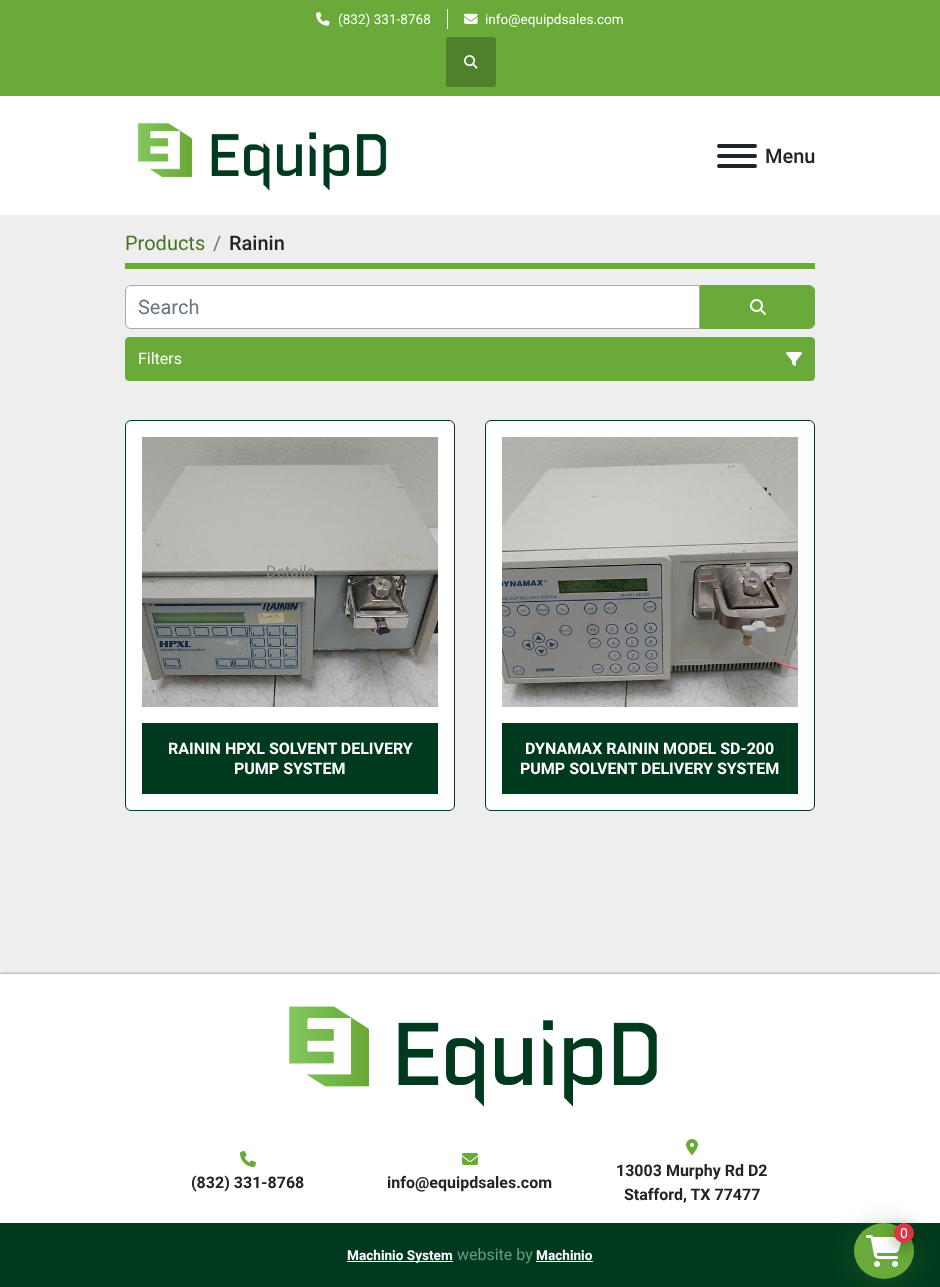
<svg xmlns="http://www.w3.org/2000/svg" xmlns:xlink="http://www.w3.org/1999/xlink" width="940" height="1287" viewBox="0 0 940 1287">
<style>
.cls-1{font:13.6px Roboto;fill:#ffffff}
.cls-2{font:500 20px Roboto;fill:#212529}
.cls-3{font:20px Roboto;fill:#467127}
.cls-4{font:20px Roboto;fill:#6c757d}
.cls-5{font:16px Roboto;fill:#ffffff}
.cls-6{font:16px Roboto;fill:#84837f}
.cls-7{font:bold 16px Roboto;fill:#ffffff}
.cls-8{font:bold 16px Roboto;fill:#212529}
.cls-9{font:bold 13.6px Roboto;fill:#ffffff}
.cls-10{font:16px Roboto;fill:#6a9c84}
.cls-11{font:14px Roboto;fill:#ffffff}
</style>
<defs>
<clipPath id="clip1"><rect x="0" y="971" width="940" height="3"/></clipPath>
</defs>
<rect width="100%" height="100%" fill="#eeeeee"/>
<rect fill="#69aa3a" x="0" y="0" width="940" height="96"/>
<rect fill="#ffffff" x="447" y="9" width="1" height="20"/>
<image xlink:href="image0.png" x="316" y="12" width="14" height="14"/>
<image xlink:href="image1.png" x="464" y="13" width="14" height="11"/>
<rect fill="#4f802c" x="446" y="37" width="50" height="50" rx="3"/>
<image xlink:href="image2.png" x="464" y="55" width="14" height="14"/>
<rect fill="#ffffff" x="0" y="96" width="940" height="119"/>
<image xlink:href="image3.png" x="138" y="122" width="249" height="69"/>
<rect fill="#212529" x="717" y="154" width="40" height="4" rx="2"/>
<rect fill="#212529" x="717" y="144" width="40" height="4" rx="2"/>
<rect fill="#212529" x="717" y="164" width="40" height="4" rx="2"/>
<rect fill="#69aa3a" x="125" y="263" width="690" height="6"/>
<path fill="#ffffff" stroke="#aaaaaa" d="M131 285.5H699.5V328.5H131C128 328.5 125.5 326 125.5 323V291C125.5 288 128 285.5 131 285.5Z"/>
<path fill="#69aa3a" stroke="#69aa3a" d="M700.5 285.5H809C812 285.5 814.5 288 814.5 291V323C814.5 326 812 328.5 809 328.5H700.5Z"/>
<image xlink:href="image4.png" x="750" y="299" width="16" height="16"/>
<rect fill="#69aa3a" stroke="#69aa3a" x="125.5" y="337.5" width="689" height="43" rx="3.5"/>
<image xlink:href="image5.png" x="786" y="352" width="16" height="14"/>
<rect fill="#ffffff" stroke="#003a1e" x="125.5" y="420.5" width="329" height="390" rx="5.5"/>
<image xlink:href="image6.png" x="142" y="437" width="296" height="270"/>
<rect fill="#003a1e" x="142" y="723" width="296" height="71"/>
<rect fill="#ffffff" stroke="#003a1e" x="485.5" y="420.5" width="329" height="390" rx="5.5"/>
<image xlink:href="image7.png" x="502" y="437" width="296" height="270"/>
<rect fill="#003a1e" x="502" y="723" width="296" height="71"/>
<rect fill="#ffffff" x="0" y="974" width="940" height="249"/>
<g clip-path="url(#clip1)">
<rect fill="#000000" fill-opacity="0.5" filter="blur(1.5px)" x="0" y="974" width="940" height="249"/>
</g>
<image xlink:href="image8.png" x="289" y="1006" width="368" height="101"/>
<image xlink:href="image9.png" x="240" y="1151" width="16" height="16"/>
<image xlink:href="image10.png" x="462" y="1153" width="16" height="12"/>
<image xlink:href="image11.png" x="686" y="1139" width="12" height="16"/>
<rect fill="#003a1e" x="0" y="1223" width="940" height="64"/>
<rect fill="#ffffff" x="347" y="1261" width="106" height="1"/>
<rect fill="#ffffff" x="536" y="1261" width="57" height="1"/>
<rect fill="#467127" fill-opacity="0.4" filter="blur(12px)" x="854" y="1227" width="60" height="56" rx="28"/>
<ellipse fill="#69aa3a" cx="884" cy="1251" rx="30" ry="28"/>
<image xlink:href="image12.png" x="866" y="1235" width="36" height="32"/>
<rect fill="#000000" fill-opacity="0.4" filter="blur(8px)" x="894" y="1227" width="20" height="20" rx="10"/>
<circle fill="#dc3545" cx="904" cy="1233" r="10"/>
<text class="cls-1" x="338" y="24">(832) 331-8768</text>
<text class="cls-1" x="485" y="24">info@equipdsales.com</text>
<text class="cls-2" x="765" y="163">Menu</text>
<text class="cls-3" x="125" y="250">Products</text>
<text class="cls-4" x="213" y="250">/</text>
<text class="cls-2" x="229" y="250">Rainin</text>
<text class="cls-4" x="138" y="314">Search</text>
<text class="cls-5" x="138" y="364">Filters</text>
<text class="cls-6" x="266" y="577">Details</text>
<text class="cls-7" x="168" y="754">RAININ HPXL SOLVENT DELIVERY</text>
<text class="cls-7" x="234" y="774">PUMP SYSTEM</text>
<text class="cls-7" x="525" y="754">DYNAMAX RAININ MODEL SD-200</text>
<text class="cls-7" x="520" y="774">PUMP SOLVENT DELIVERY SYSTEM</text>
<text class="cls-8" x="191" y="1188">(832) 331-8768</text>
<text class="cls-8" x="387" y="1188">info@equipdsales.com</text>
<text class="cls-8" x="616" y="1176">13003 Murphy Rd D2</text>
<text class="cls-8" x="624" y="1200">Stafford, TX 77477</text>
<text class="cls-9" x="347" y="1260">Machinio System</text>
<text class="cls-10" x="457" y="1260">website by</text>
<text class="cls-9" x="536" y="1260">Machinio</text>
<text class="cls-11" x="900" y="1238">0</text>
</svg>
